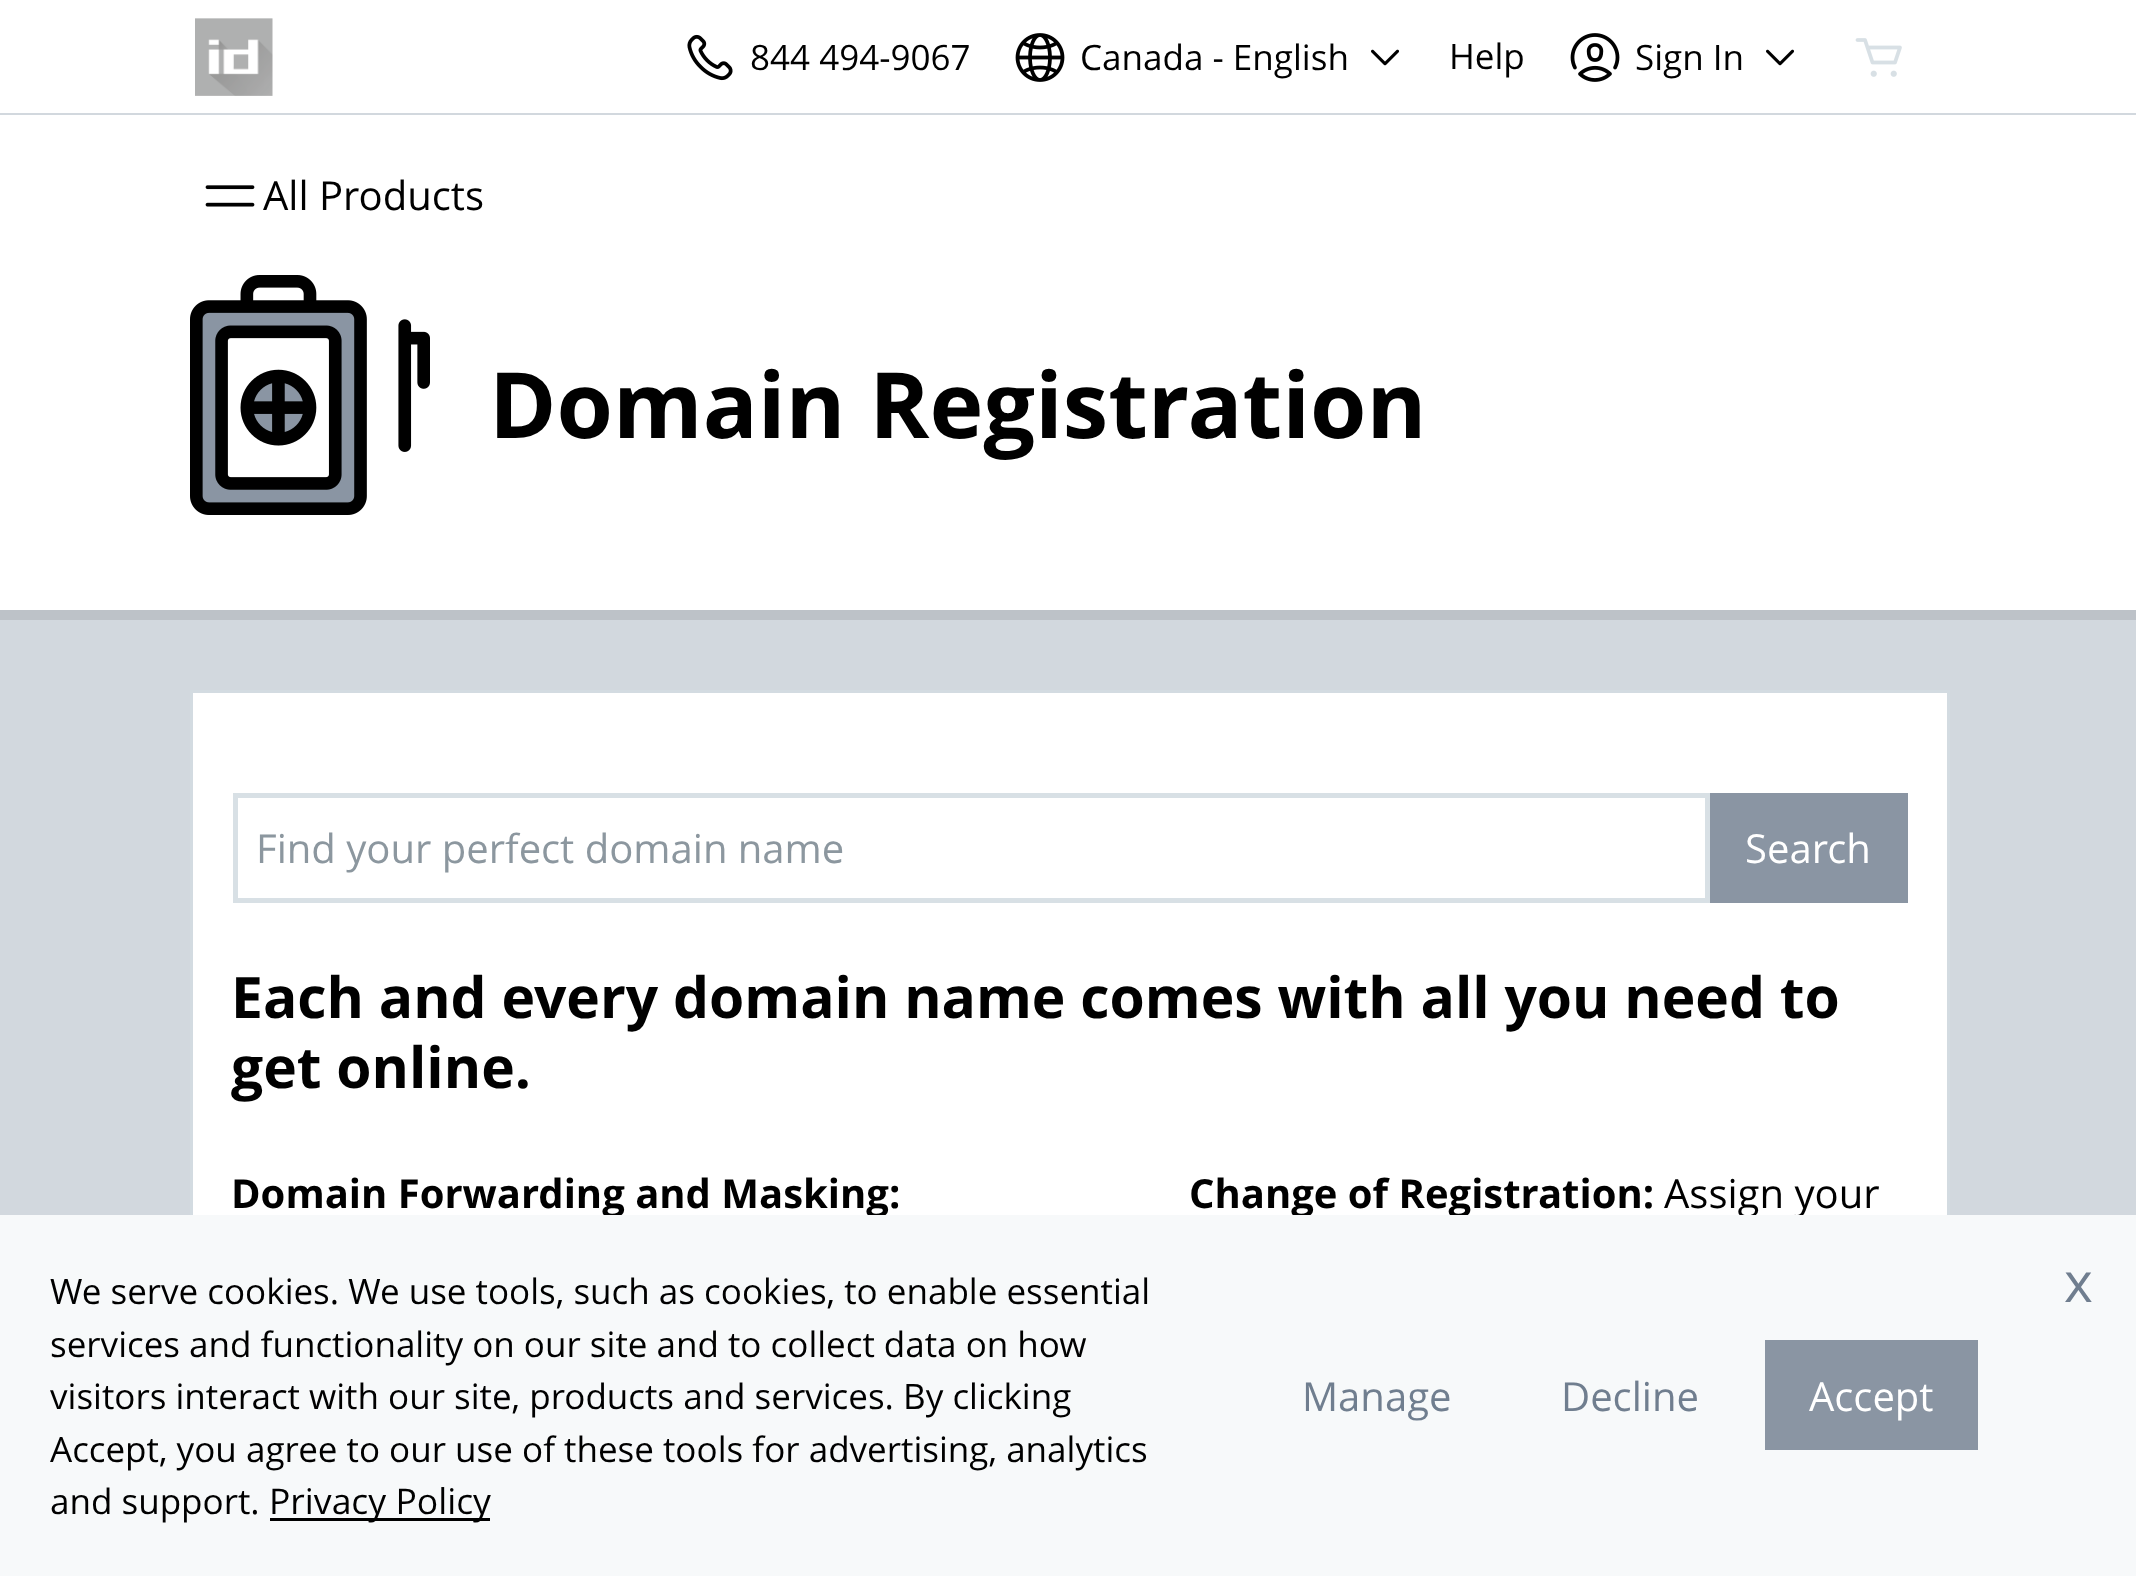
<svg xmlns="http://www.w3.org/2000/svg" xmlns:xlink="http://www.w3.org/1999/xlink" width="2136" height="1576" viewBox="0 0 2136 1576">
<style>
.cls-1{font:35px Open Sans;fill:#000000}
.cls-2{font:40px Open Sans;fill:#000000}
.cls-3{font:bold 91.25px Open Sans;fill:#000000}
.cls-4{font:40px Open Sans;fill:#8c979f}
.cls-5{font:40px Open Sans;fill:#ffffff}
.cls-6{font:bold 56.95px Open Sans;fill:#000000}
.cls-7{font:bold 40px Open Sans;fill:#000000}
.cls-8{font:35.5px Open Sans;fill:#000000}
.cls-9{font:40px Open Sans;fill:#707e8f}
.cls-10{font:55px Open Sans;fill:#707e8f}
</style>
<rect width="100%" height="100%" fill="#d2d8de"/>
<rect fill="#ffffff" x="0" y="0" width="2136" height="113"/>
<image xlink:href="image0.png" x="195" y="18" width="78" height="78"/>
<image xlink:href="image1.png" x="687" y="34" width="46" height="47"/>
<image xlink:href="image2.png" x="1015" y="33" width="50" height="49"/>
<image xlink:href="image3.png" x="1371" y="49" width="28" height="17"/>
<image xlink:href="image4.png" x="1570" y="33" width="50" height="49"/>
<image xlink:href="image3.png" x="1766" y="49" width="28" height="17"/>
<image xlink:href="image5.png" x="1855" y="38" width="47" height="39"/>
<rect fill="#ffffff" x="0" y="115" width="2136" height="495"/>
<image xlink:href="image6.png" x="205" y="185" width="50" height="22"/>
<path fill="#bdc2c8" d="M0 610V620H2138V285V610Z"/>
<image xlink:href="image7.png" x="190" y="275" width="240" height="240"/>
<rect fill="#ffffff" x="193" y="693" width="1754" height="522"/>
<rect fill="none" stroke="#d3dbe1" stroke-width="3" x="191.5" y="691.5" width="1757" height="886"/>
<rect fill="none" stroke="#d8e0e5" stroke-width="5" x="235.5" y="795.5" width="1472" height="105"/>
<rect fill="#8a95a3" x="1710" y="793" width="198" height="110"/>
<text class="cls-1" x="750" y="70">844 494-9067</text>
<text class="cls-1" x="1080" y="70">Canada - English</text>
<text class="cls-1" x="1449" y="69">Help</text>
<text class="cls-1" x="1635" y="70">Sign In</text>
<text class="cls-2" x="263" y="210">All Products</text>
<text class="cls-3" x="489" y="438">Domain Registration</text>
<text class="cls-4" x="256" y="863">Find your perfect domain name</text>
<text class="cls-5" x="1745" y="863">Search</text>
<text class="cls-6"><tspan x="231" y="1018">Each and every domain name comes with all you need to</tspan><tspan x="231" y="1088">get online.</tspan></text>
<text class="cls-7" x="231" y="1208">Domain Forwarding and Masking:</text>
<text class="cls-7" x="1189" y="1208">Change of Registration:</text>
<text class="cls-2" x="1664" y="1208">Assign your</text>
<rect fill="#f7f9fa" x="0" y="1215" width="2136" height="361"/>
<text class="cls-1"><tspan x="50" y="1304">We serve cookies. We use tools, such as cookies, to enable essential</tspan><tspan x="50" y="1357">services and functionality on our site and to collect data on how</tspan><tspan x="50" y="1409">visitors interact with our site, products and services. By clicking</tspan><tspan x="50" y="1462">Accept, you agree to our use of these tools for advertising, analytics</tspan><tspan x="50" y="1514">and support.</tspan></text>
<rect fill="#000000" x="270" y="1518" width="220" height="3"/>
<text class="cls-8" x="269" y="1514">Privacy Policy</text>
<text class="cls-9" x="1302" y="1411">Manage</text>
<text class="cls-9" x="1561" y="1411">Decline</text>
<rect fill="#8a95a3" x="1765" y="1340" width="213" height="110"/>
<text class="cls-5" x="1809" y="1411">Accept</text>
<text class="cls-10" x="2064" y="1302">x</text>
</svg>
